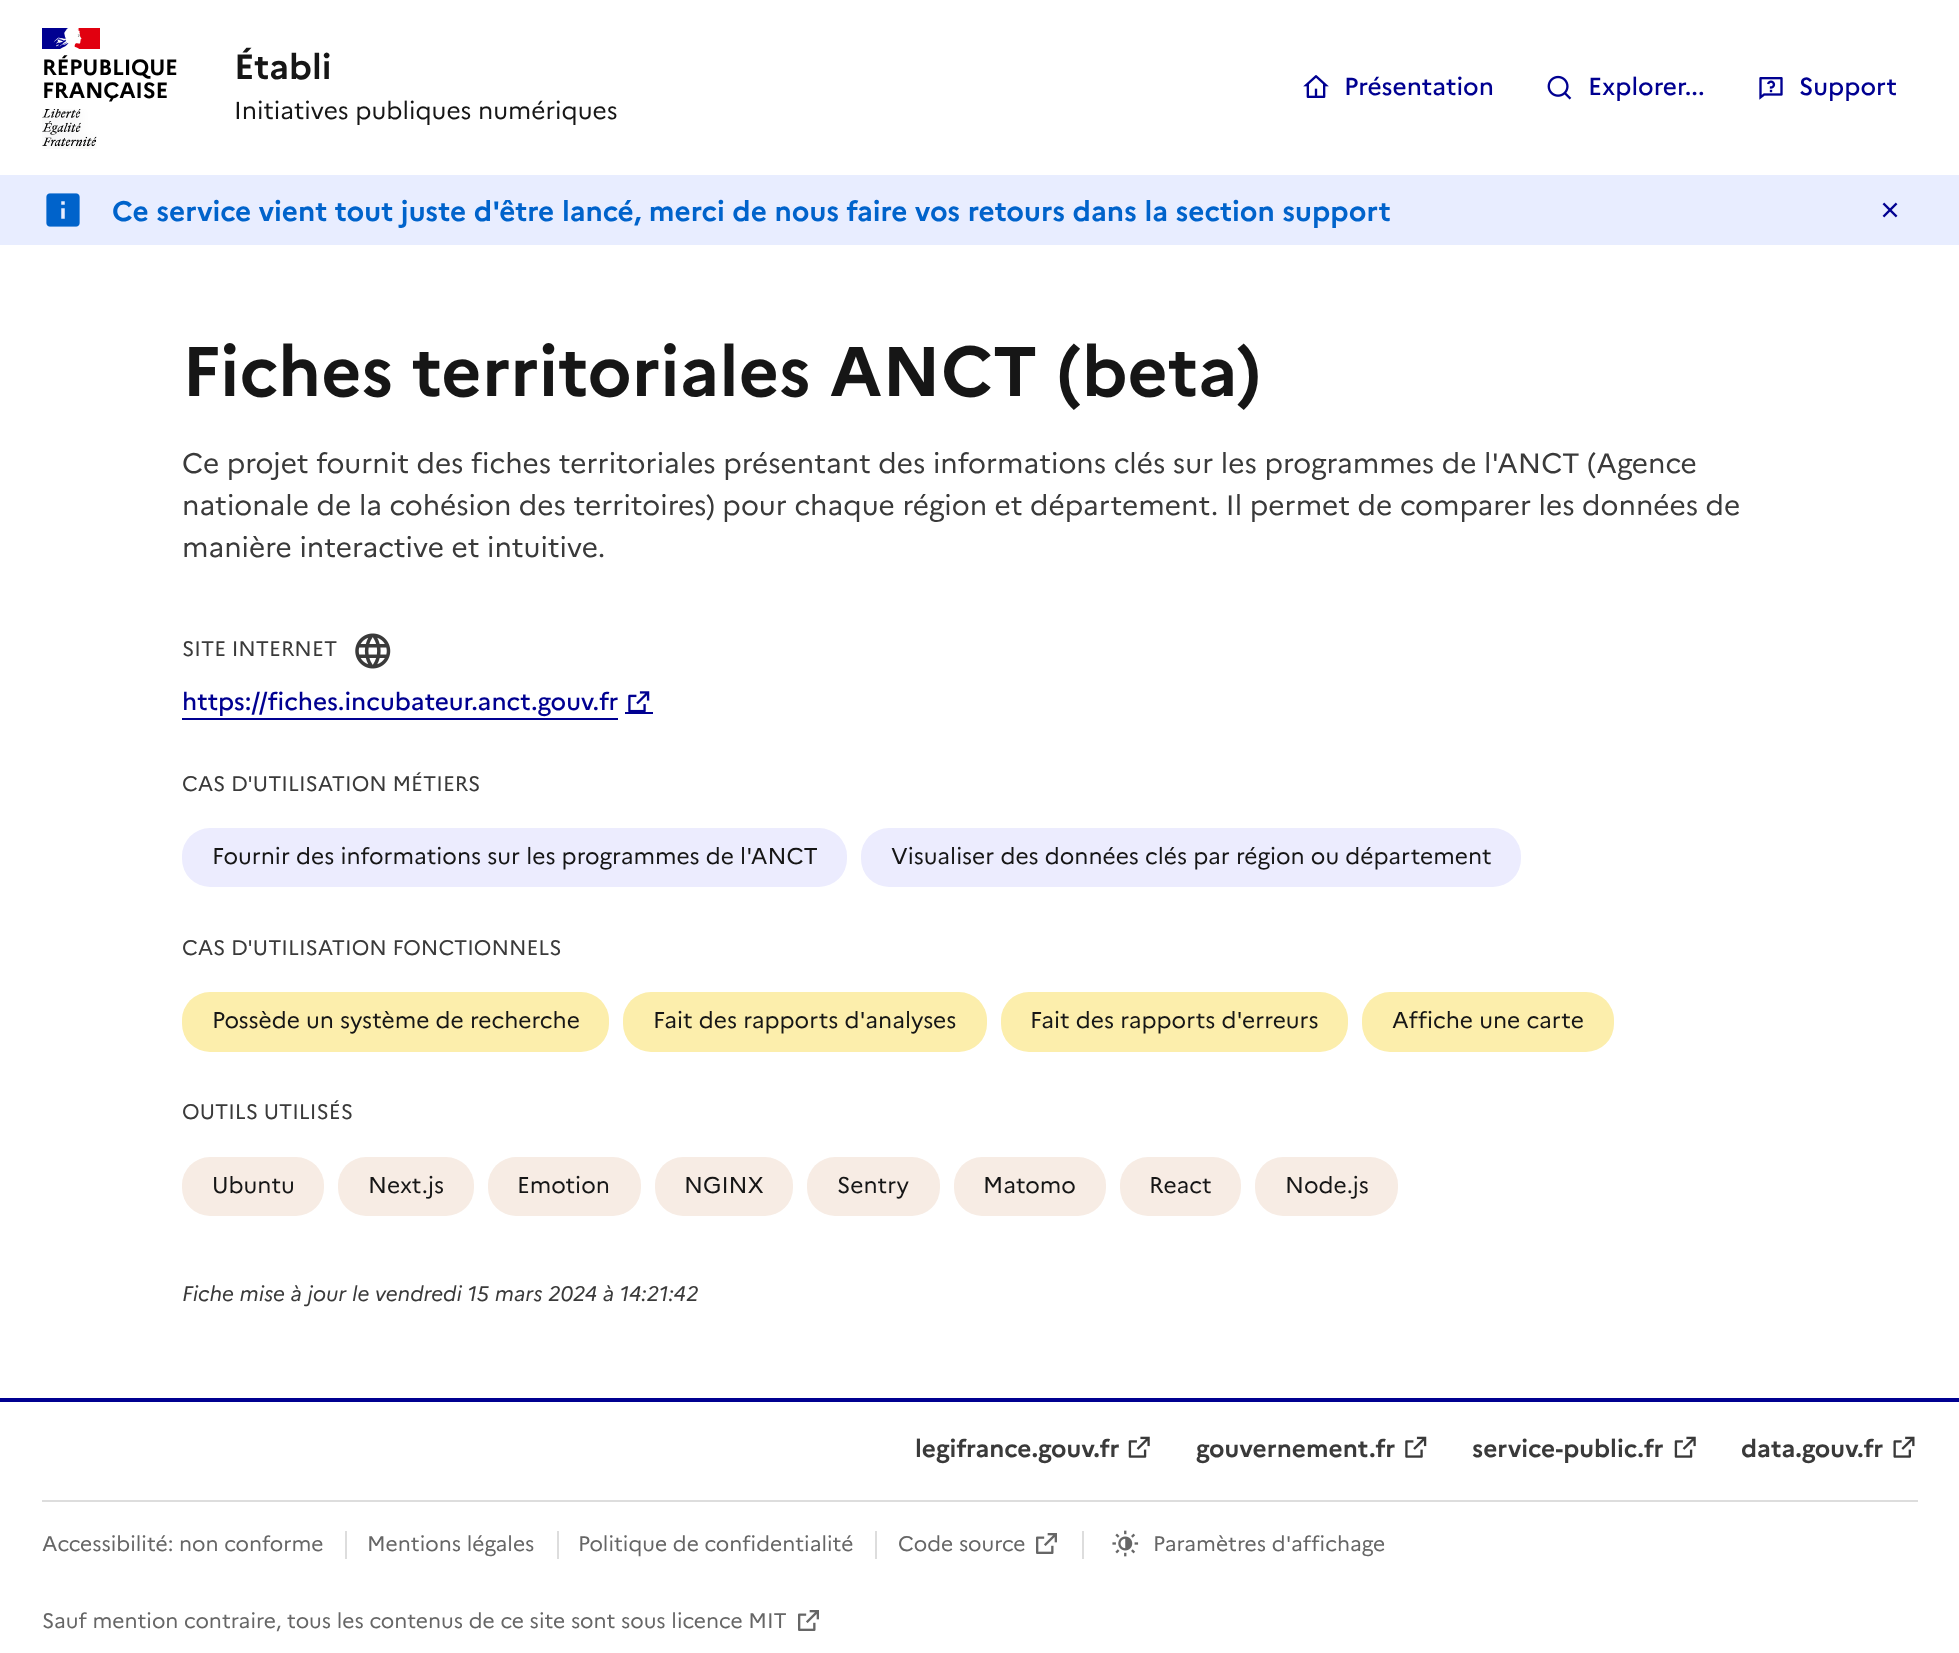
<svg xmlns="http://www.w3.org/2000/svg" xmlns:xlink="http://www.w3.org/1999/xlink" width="1959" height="1653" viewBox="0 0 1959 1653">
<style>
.cls-1{font:bold 22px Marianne;letter-spacing:-0.25px;fill:#000000}
.cls-2{font:bold 35px Marianne;fill:#161616}
.cls-3{font:24.5px Marianne;fill:#161616}
.cls-4{font:500 24.5px Marianne;fill:#000091}
.cls-5{font:bold 28px Marianne;fill:#0063cb}
.cls-6{font:bold 70px Marianne;fill:#161616}
.cls-7{font:28px Marianne;fill:#3a3a3a}
.cls-8{font:21px Marianne;fill:#3a3a3a}
.cls-9{font:22.75px Marianne;fill:#161616}
.cls-10{font:italic 21px Marianne;fill:#3a3a3a}
.cls-11{font:bold 24.5px Marianne;fill:#3a3a3a}
.cls-12{font:21px Marianne;fill:#666666}
</style>
<rect width="100%" height="100%" fill="#ffffff"/>
<rect fill="#000091" x="42" y="28" width="27" height="21"/>
<rect fill="#e1000f" x="74" y="28" width="26" height="21"/>
<image xlink:href="image0.png" x="53" y="28" width="29" height="21"/>
<image xlink:href="image1.png" x="42" y="109" width="55" height="40"/>
<image xlink:href="image2.png" x="1303" y="75" width="26" height="23"/>
<image xlink:href="image3.png" x="1547" y="75" width="25" height="25"/>
<image xlink:href="image4.png" x="1759" y="77" width="24" height="23"/>
<rect fill="#e8edff" x="0" y="175" width="1959" height="70"/>
<image xlink:href="image5.png" x="46" y="193" width="34" height="34"/>
<image xlink:href="image6.png" x="1882" y="202" width="16" height="16"/>
<image xlink:href="image7.png" x="355" y="633" width="36" height="36"/>
<rect fill="#000091" x="182" y="718" width="436" height="2"/>
<rect fill="#000091" x="625" y="712" width="28" height="2"/>
<image xlink:href="image8.png" x="628" y="691" width="22" height="21"/>
<rect fill="#ececfe" x="182" y="828" width="665" height="59" rx="28"/>
<rect fill="#ececfe" x="861" y="828" width="660" height="59" rx="28"/>
<rect fill="#fceeac" x="182" y="992" width="427" height="60" rx="28"/>
<rect fill="#fceeac" x="623" y="992" width="364" height="60" rx="28"/>
<rect fill="#fceeac" x="1001" y="992" width="347" height="60" rx="28"/>
<rect fill="#fceeac" x="1362" y="992" width="252" height="60" rx="28"/>
<rect fill="#f7ece4" x="182" y="1157" width="142" height="59" rx="28"/>
<rect fill="#f7ece4" x="338" y="1157" width="136" height="59" rx="28"/>
<rect fill="#f7ece4" x="488" y="1157" width="153" height="59" rx="28"/>
<rect fill="#f7ece4" x="655" y="1157" width="138" height="59" rx="28"/>
<rect fill="#f7ece4" x="807" y="1157" width="133" height="59" rx="28"/>
<rect fill="#f7ece4" x="954" y="1157" width="152" height="59" rx="28"/>
<rect fill="#f7ece4" x="1120" y="1157" width="121" height="59" rx="28"/>
<rect fill="#f7ece4" x="1255" y="1157" width="143" height="59" rx="28"/>
<rect fill="#000091" x="0" y="1398" width="1959" height="4"/>
<image xlink:href="image9.png" x="1128" y="1436" width="22" height="22"/>
<image xlink:href="image10.png" x="1405" y="1436" width="22" height="22"/>
<image xlink:href="image9.png" x="1674" y="1436" width="22" height="22"/>
<image xlink:href="image11.png" x="1893" y="1436" width="22" height="22"/>
<rect fill="#dddddd" x="42" y="1500" width="1876" height="2"/>
<rect fill="#dddddd" x="345" y="1531" width="2" height="28"/>
<rect fill="#dddddd" x="557" y="1531" width="2" height="28"/>
<rect fill="#dddddd" x="875" y="1531" width="2" height="28"/>
<image xlink:href="image12.png" x="1036" y="1533" width="21" height="21"/>
<rect fill="#dddddd" x="1082" y="1531" width="2" height="28"/>
<image xlink:href="image13.png" x="1112" y="1530" width="27" height="27"/>
<image xlink:href="image12.png" x="798" y="1610" width="21" height="21"/>
<text class="cls-1"><tspan x="42" y="75">RÉPUBLIQUE</tspan><tspan x="42" y="98">FRANÇAISE</tspan></text>
<text class="cls-2" x="234" y="79">Établi</text>
<text class="cls-3" x="234" y="119">Initiatives publiques numériques</text>
<text class="cls-4" x="1344" y="95">Présentation</text>
<text class="cls-4" x="1588" y="95">Explorer...</text>
<text class="cls-4" x="1799" y="95">Support</text>
<text class="cls-5" x="112" y="221">Ce service vient tout juste d'être lancé, merci de nous faire vos retours dans la section support</text>
<text class="cls-6" x="182" y="396">Fiches territoriales ANCT (beta)</text>
<text class="cls-7"><tspan x="182" y="473">Ce projet fournit des fiches territoriales présentant des informations clés sur les programmes de l'ANCT (Agence</tspan><tspan x="182" y="515">nationale de la cohésion des territoires) pour chaque région et département. Il permet de comparer les données de</tspan><tspan x="182" y="557">manière interactive et intuitive.</tspan></text>
<text class="cls-8" x="182" y="656">SITE INTERNET</text>
<text class="cls-4" x="182" y="710">https://fiches.incubateur.anct.gouv.fr</text>
<text class="cls-8" x="182" y="791">CAS D'UTILISATION MÉTIERS</text>
<text class="cls-9" x="212" y="864">Fournir des informations sur les programmes de l'ANCT</text>
<text class="cls-9" x="891" y="864">Visualiser des données clés par région ou département</text>
<text class="cls-8" x="182" y="955">CAS D'UTILISATION FONCTIONNELS</text>
<text class="cls-9" x="212" y="1028">Possède un système de recherche</text>
<text class="cls-9" x="653" y="1028">Fait des rapports d'analyses</text>
<text class="cls-9" x="1030" y="1028">Fait des rapports d'erreurs</text>
<text class="cls-9" x="1392" y="1028">Affiche une carte</text>
<text class="cls-8" x="182" y="1119">OUTILS UTILISÉS</text>
<text class="cls-9" x="212" y="1193">Ubuntu</text>
<text class="cls-9" x="368" y="1193">Next.js</text>
<text class="cls-9" x="517" y="1193">Emotion</text>
<text class="cls-9" x="684" y="1193">NGINX</text>
<text class="cls-9" x="837" y="1193">Sentry</text>
<text class="cls-9" x="983" y="1193">Matomo</text>
<text class="cls-9" x="1149" y="1193">React</text>
<text class="cls-9" x="1285" y="1193">Node.js</text>
<text class="cls-10" x="182" y="1301">Fiche mise à jour le vendredi 15 mars 2024 à 14:21:42</text>
<text class="cls-11" x="915" y="1457">legifrance.gouv.fr</text>
<text class="cls-11" x="1196" y="1457">gouvernement.fr</text>
<text class="cls-11" x="1472" y="1457">service-public.fr</text>
<text class="cls-11" x="1741" y="1457">data.gouv.fr</text>
<text class="cls-12" x="42" y="1551">Accessibilité: non conforme</text>
<text class="cls-12" x="367" y="1551">Mentions légales</text>
<text class="cls-12" x="578" y="1551">Politique de confidentialité</text>
<text class="cls-12" x="898" y="1551">Code source</text>
<text class="cls-12" x="1153" y="1551">Paramètres d'affichage</text>
<text class="cls-12" x="42" y="1628">Sauf mention contraire, tous les contenus de ce site sont sous licence MIT</text>
</svg>
